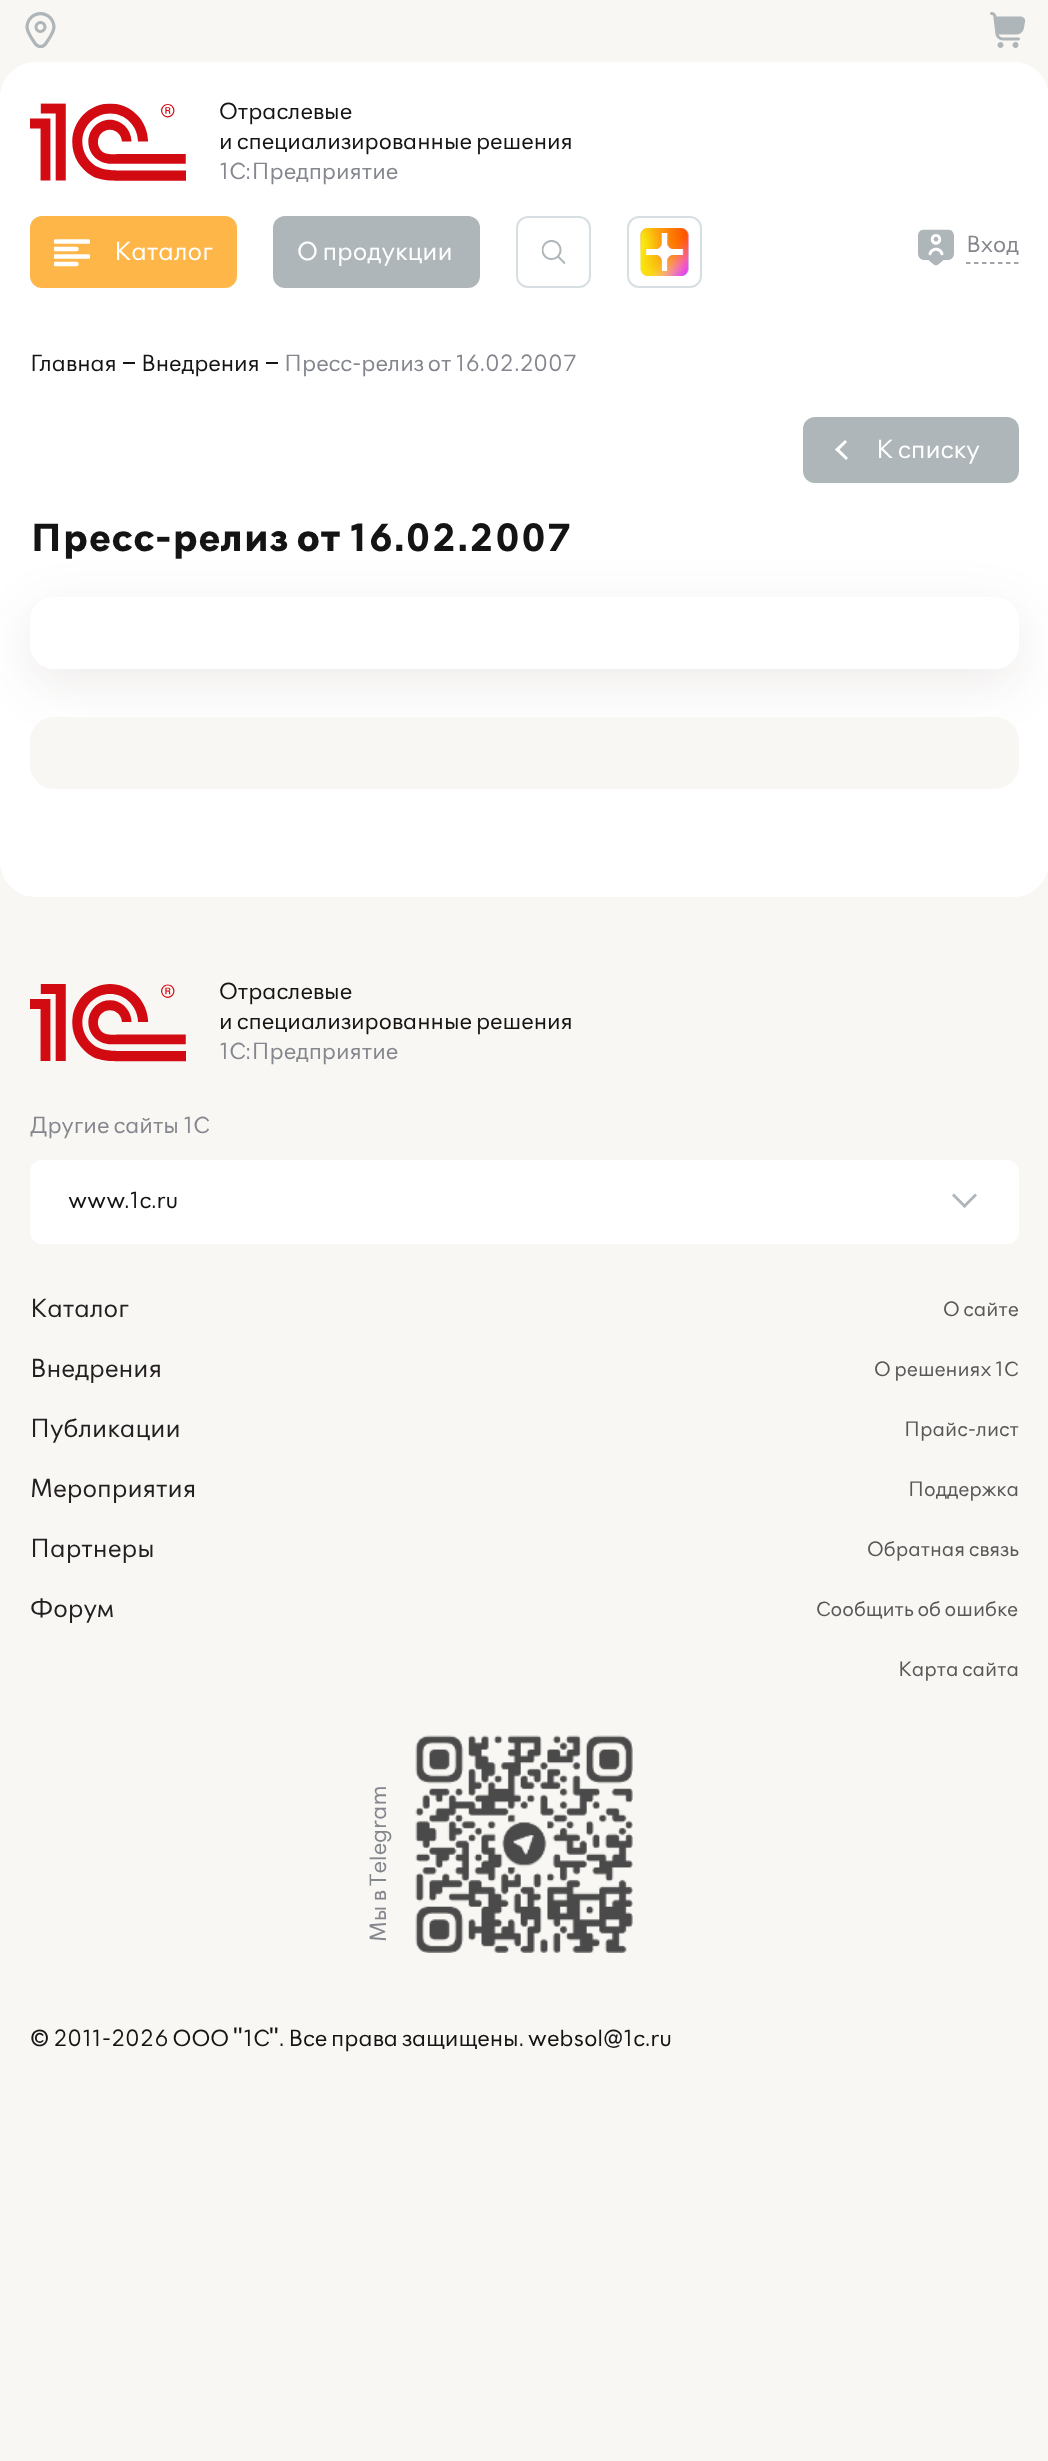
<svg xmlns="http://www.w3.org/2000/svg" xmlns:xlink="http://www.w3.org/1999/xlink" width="1048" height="2461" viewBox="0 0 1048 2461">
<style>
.cls-1{font:27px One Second;fill:#141414}
.cls-2{font:27px One Second;fill:#85878e}
.cls-3{font:30px One Second;fill:#ffffff}
.cls-4{font:bold 45px One Second;fill:#141414}
.cls-5{font:30px One Second;fill:#231f20}
.cls-6{font:24px One Second;fill:#585858}
.cls-7{font:27px Liberation Sans;fill:#141414}
</style>
<rect width="100%" height="100%" fill="#f9f7f3"/>
<path fill="#ffffff" d="M36 62H1013C1033 62 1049 78 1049 98V324H0V98C0 78 16 62 36 62Z"/>
<image xlink:href="image0.png" x="30" y="103" width="156" height="78"/>
<rect fill="#ffb649" x="30" y="216" width="207" height="72" rx="12"/>
<image xlink:href="image1.png" x="54" y="239" width="36" height="28"/>
<rect fill="#afb6b9" x="273" y="216" width="207" height="72" rx="12"/>
<rect fill="none" stroke="#d8dfe2" stroke-width="2" x="517" y="217" width="73" height="70" rx="11"/>
<image xlink:href="image2.png" x="541" y="240" width="25" height="24"/>
<rect fill="none" stroke="#d8dfe2" stroke-width="2" x="628" y="217" width="73" height="70" rx="11"/>
<image xlink:href="image3.png" x="640" y="228" width="49" height="48"/>
<image xlink:href="image4.png" x="640" y="228" width="49" height="48"/>
<image xlink:href="image5.png" x="25" y="12" width="31" height="36"/>
<image xlink:href="image6.png" x="990" y="12" width="36" height="36"/>
<image xlink:href="image7.png" x="918" y="229" width="36" height="37"/>
<path fill="none" stroke="#85878e" stroke-width="1.5" stroke-dasharray="4.5 3.5" d="M966 263H1018.5"/>
<path fill="#ffffff" d="M0 324H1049V861C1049 881 1033 897 1013 897H36C16 897 0 881 0 861Z"/>
<rect fill="#141414" x="123" y="362" width="12" height="2"/>
<rect fill="#141414" x="266" y="362" width="12" height="2"/>
<rect fill="#afb6b9" x="803" y="417" width="216" height="66" rx="12"/>
<path fill="#ffffff" d="M835 449.5L845 440L847 442L837.5 451.5Z"/>
<path fill="#ffffff" d="M835 449.5L837.5 447.5L848 458L846 460Z"/>
<rect fill="#553e2d" fill-opacity="0.1" filter="blur(26px)" x="30" y="611" width="989" height="72" rx="24"/>
<rect fill="#ffffff" x="30" y="597" width="989" height="72" rx="24"/>
<rect fill="#f9f7f3" x="30" y="717" width="989" height="72" rx="24"/>
<image xlink:href="image8.png" x="30" y="984" width="156" height="78"/>
<rect fill="#ffffff" stroke="#ffffff" stroke-width="2" x="31" y="1161" width="987" height="82" rx="11"/>
<path fill="#afb6b9" d="M975 1193.5L977 1195.5L964.5 1208L962.5 1206Z"/>
<path fill="#afb6b9" d="M954 1193.5L966.5 1206L964.5 1208L952 1195.5Z"/>
<image xlink:href="image9.png" x="415" y="1735" width="218" height="218"/>
<text class="cls-1"><tspan x="219" y="119">Отраслевые</tspan><tspan x="219" y="149">и специализированные решения</tspan></text>
<text class="cls-2" x="219" y="179">1С:Предприятие</text>
<text class="cls-3" x="114" y="260">Каталог</text>
<text class="cls-3" x="297" y="260">О продукции</text>
<text class="cls-2" x="966" y="252">Вход</text>
<text class="cls-1" x="30" y="371">Главная</text>
<text class="cls-1" x="141" y="371">Внедрения</text>
<text class="cls-2" x="284" y="371">Пресс-релиз от 16.02.2007</text>
<text class="cls-3" x="876" y="458">К списку</text>
<text class="cls-4" x="30" y="551">Пресс-релиз от 16.02.2007</text>
<text class="cls-1"><tspan x="219" y="999">Отраслевые</tspan><tspan x="219" y="1029">и специализированные решения</tspan></text>
<text class="cls-2" x="219" y="1059">1С:Предприятие</text>
<text class="cls-2" x="30" y="1133">Другие сайты 1С</text>
<text class="cls-1" x="68" y="1208">www.1c.ru</text>
<text class="cls-5" x="30" y="1317">Каталог</text>
<text class="cls-5" x="30" y="1377">Внедрения</text>
<text class="cls-5" x="30" y="1437">Публикации</text>
<text class="cls-5" x="30" y="1497">Мероприятия</text>
<text class="cls-5" x="30" y="1557">Партнеры</text>
<text class="cls-5" x="30" y="1617">Форум</text>
<text class="cls-6" x="943" y="1316">О сайте</text>
<text class="cls-6" x="874" y="1376">О решениях 1С</text>
<text class="cls-6" x="904" y="1436">Прайс-лист</text>
<text class="cls-6" x="908" y="1496">Поддержка</text>
<text class="cls-6" x="867" y="1556">Обратная связь</text>
<text class="cls-6" x="816" y="1616">Сообщить об ошибке</text>
<text class="cls-6" x="898" y="1676">Карта сайта</text>
<text class="cls-2" x="386" y="1942" transform="rotate(-90 386 1942)">Мы в Telegram</text>
<text class="cls-1" x="30" y="2046">© 2011-2026 ООО</text>
<text class="cls-7" x="233" y="2046">"</text>
<text class="cls-1" x="243" y="2046">1С</text>
<text class="cls-7" x="269" y="2046">"</text>
<text class="cls-1" x="279" y="2046">. Все права защищены. websol@1c.ru</text>
</svg>
